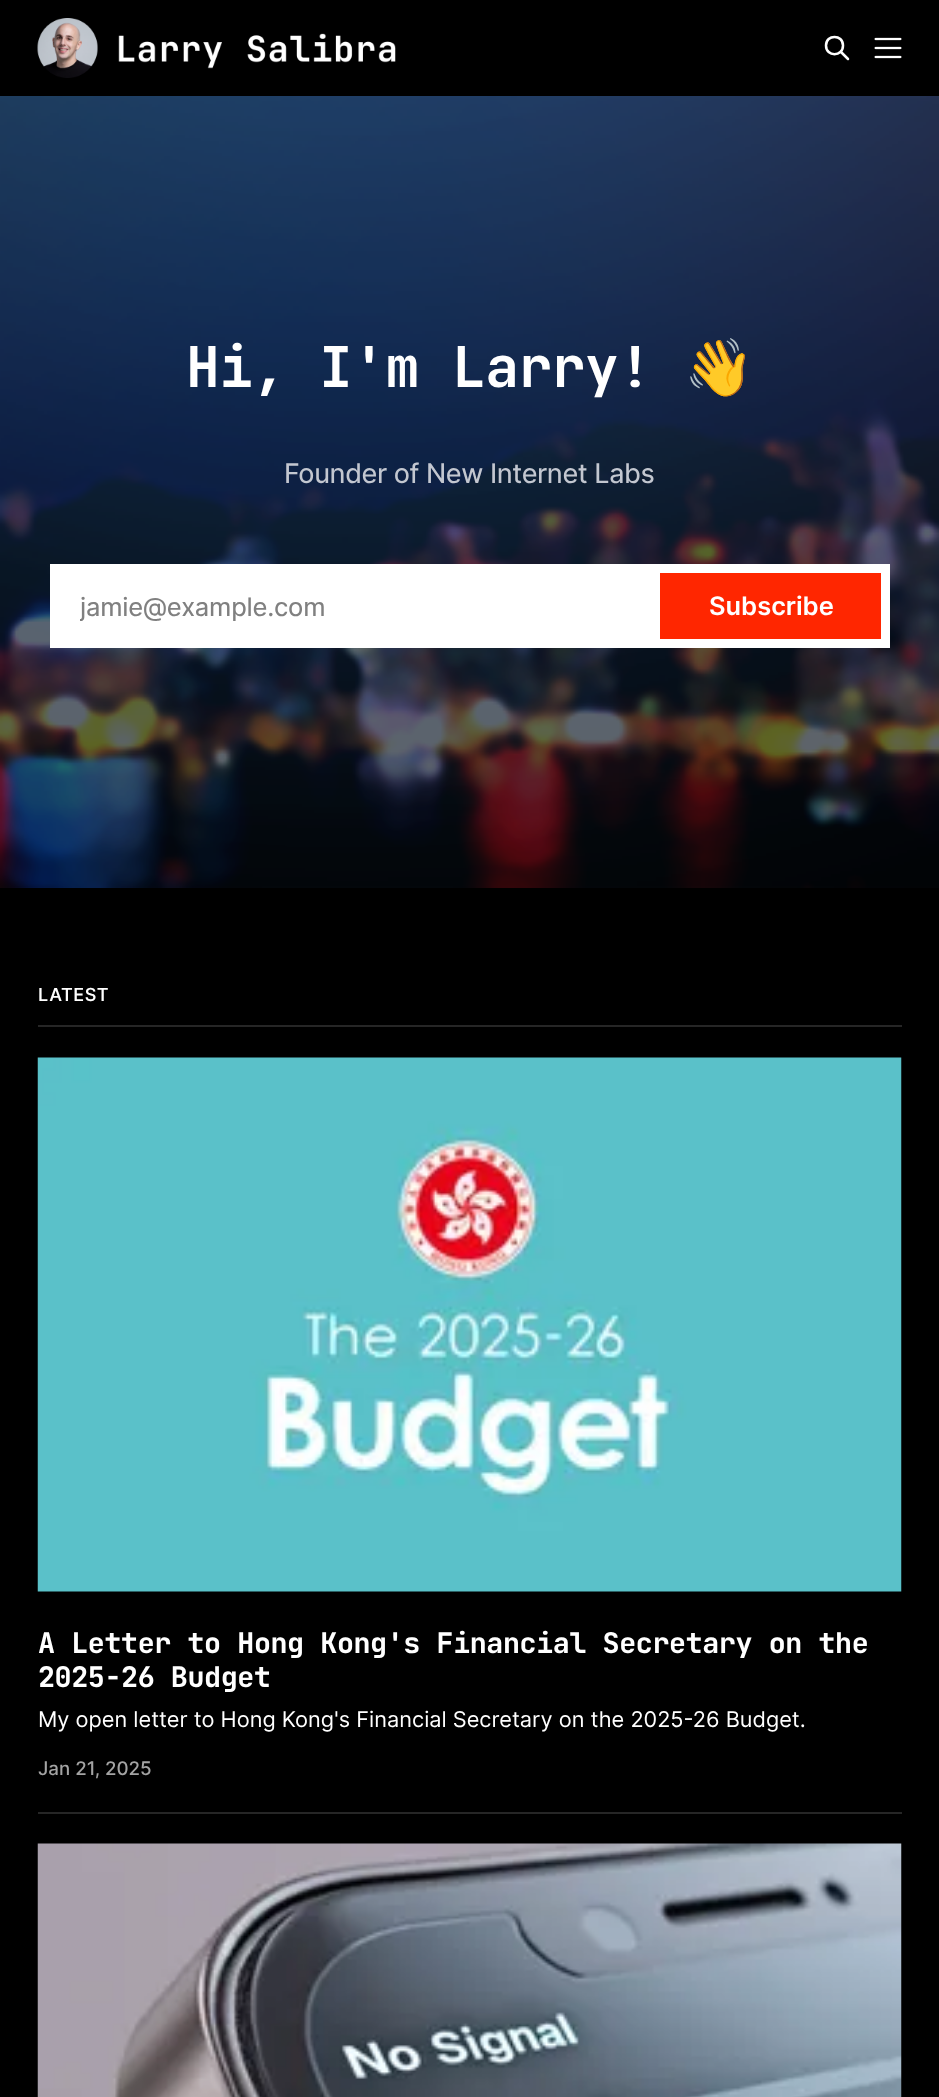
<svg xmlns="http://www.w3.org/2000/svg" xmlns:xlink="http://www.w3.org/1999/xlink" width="939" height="2097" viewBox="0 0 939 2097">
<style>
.cls-1{font:bold 56.25px JetBrains Mono;letter-spacing:-0.5px;fill:#ffffff}
.cls-2{font:bold 56.25px Noto Color Emoji;letter-spacing:-0.5px;fill:#ffffff}
.cls-3{font:27px Inter;letter-spacing:-0.4px;fill:#c3c7d0}
.cls-4{font:25.5px Inter;letter-spacing:-0.25px;fill:#808080}
.cls-5{font:600 25.5px Inter;fill:#ffffff}
.cls-6{font:500 18px Inter;letter-spacing:0.5px;fill:#ffffff}
.cls-7{font:bold 28.35px 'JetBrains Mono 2';letter-spacing:-0.4px;fill:#ffffff}
.cls-8{font:21.75px 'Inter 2';fill:#ffffff}
.cls-9{font:500 18.75px 'Inter 2';fill:#a3a3a3}
</style>
<defs>
<clipPath id="clip1"><rect x="80" y="591" width="780" height="30"/></clipPath>
</defs>
<rect width="100%" height="100%" fill="#000000"/>
<image xlink:href="image0.png" x="37" y="18" width="359" height="60"/>
<path fill="none" stroke="#ffffff" stroke-width="2.5" stroke-linecap="round" stroke-linejoin="round" d="M848 59L841 52M843 45.5C843 57 826 57 826 45.5C826 34 843 34 843 45.5Z"/>
<image xlink:href="image1.png" x="874" y="37" width="28" height="22"/>
<image xlink:href="image2.png" x="0" y="96" width="939" height="792"/>
<rect fill="#ffffff" x="50" y="564" width="840" height="84"/>
<rect fill="#ff2600" x="660" y="573" width="221" height="66"/>
<rect fill="#262626" x="38" y="1025" width="864" height="2"/>
<image xlink:href="image3.png" x="37" y="1057" width="865" height="535"/>
<rect fill="#262626" x="38" y="1812" width="864" height="2"/>
<image xlink:href="image4.png" x="37" y="1843" width="865" height="254"/>
<text class="cls-1" x="186" y="387">Hi, I'm Larry!</text>
<text class="cls-2" x="684" y="387">👋</text>
<text class="cls-3" x="284" y="483">Founder of</text>
<text class="cls-3" x="426" y="483">New Internet Labs</text>
<g clip-path="url(#clip1)">
<text class="cls-4" x="80" y="616">jamie@example.com</text>
</g>
<text class="cls-5" x="709" y="615">Subscribe</text>
<text class="cls-6" x="38" y="1001">LATEST</text>
<text class="cls-7"><tspan x="38" y="1653">A Letter to Hong Kong's Financial Secretary on the</tspan><tspan x="38" y="1687">2025-26 Budget</tspan></text>
<text class="cls-8" x="38" y="1727">My open letter to Hong Kong's Financial Secretary on the 2025-26 Budget.</text>
<text class="cls-9" x="38" y="1775">Jan 21, 2025</text>
</svg>
